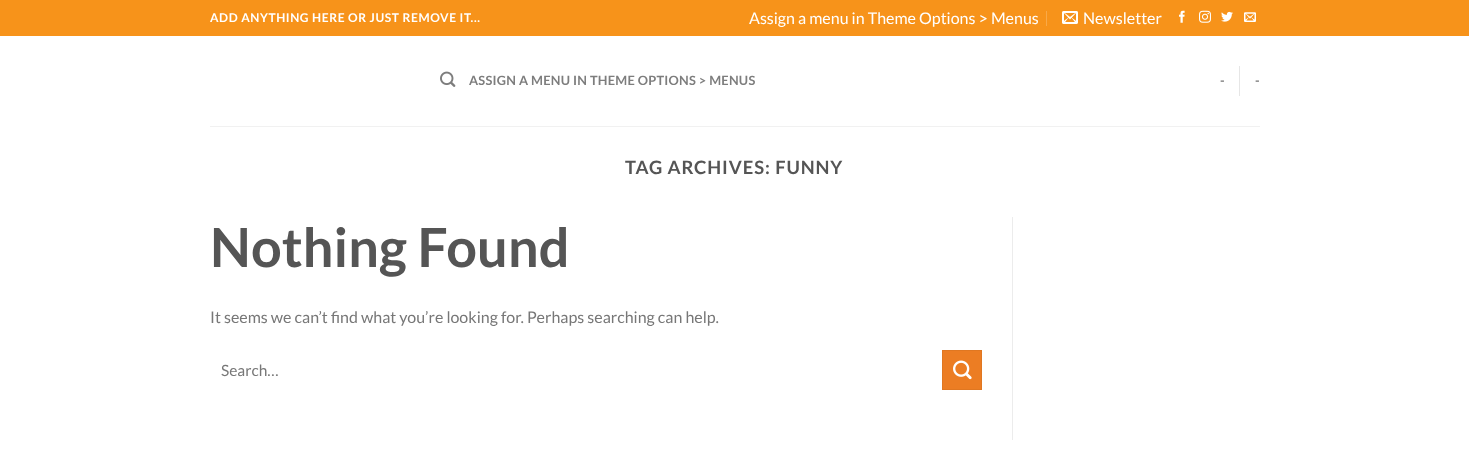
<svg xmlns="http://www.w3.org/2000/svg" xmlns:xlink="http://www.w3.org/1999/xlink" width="1469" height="468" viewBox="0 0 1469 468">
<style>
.cls-1{font:bold 12px Lato;letter-spacing:0.6px;fill:#ffffff}
.cls-2{font:16px Lato;fill:#ffffff}
.cls-3{font:bold 12.8px Lato;letter-spacing:0.25px;fill:#7d7d7d}
.cls-4{font:bold 18.4px Lato;letter-spacing:0.9px;fill:#555555}
.cls-5{font:bold 54px Lato;letter-spacing:0.1px;fill:#555555}
.cls-6{font:16px Lato;fill:#777777}
.cls-7{font:15.5px Lato;fill:#777777}
</style>
<rect width="100%" height="100%" fill="#ffffff"/>
<rect fill="#f7931a" x="0" y="0" width="1469" height="36"/>
<rect fill="#f9a948" x="1046" y="11" width="1" height="15"/>
<image xlink:href="image0.png" x="1062" y="11" width="16" height="13"/>
<image xlink:href="image1.png" x="1179" y="10" width="6" height="13"/>
<image xlink:href="image2.png" x="1199" y="10" width="12" height="13"/>
<image xlink:href="image3.png" x="1221" y="11" width="12" height="11"/>
<image xlink:href="image4.png" x="1244" y="12" width="12" height="10"/>
<image xlink:href="image5.png" x="440" y="71" width="16" height="16"/>
<rect fill="#e6e6e6" x="1239" y="66" width="1" height="30"/>
<rect fill="#f1f1f1" x="210" y="126" width="1050" height="1"/>
<rect fill="#ec7d23" stroke="#e07721" x="942.5" y="350.5" width="39" height="39"/>
<image xlink:href="image6.png" x="953" y="360" width="19" height="20"/>
<rect fill="#ececec" x="1012" y="217" width="1" height="223"/>
<text class="cls-1" x="210" y="22">ADD ANYTHING HERE OR JUST REMOVE IT...</text>
<text class="cls-2" x="749" y="24">Assign a menu in Theme Options &gt; Menus</text>
<text class="cls-2" x="1083" y="24">Newsletter</text>
<text class="cls-3" x="469" y="85">ASSIGN A MENU IN THEME OPTIONS &gt; MENUS</text>
<text class="cls-3" x="1220" y="85">-</text>
<text class="cls-3" x="1255" y="85">-</text>
<text class="cls-4" x="625" y="174">TAG ARCHIVES: FUNNY</text>
<text class="cls-5" x="210" y="267">Nothing Found</text>
<text class="cls-6" x="210" y="323">It seems we can’t find what you’re looking for. Perhaps searching can help.</text>
<text class="cls-7" x="221" y="376">Search…</text>
</svg>
